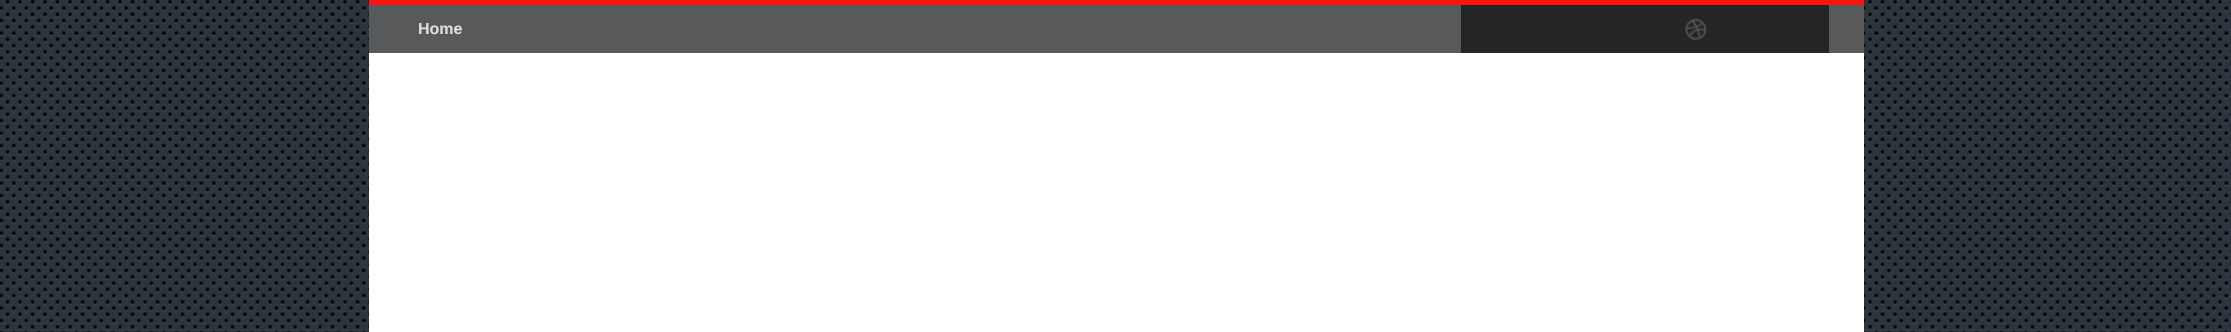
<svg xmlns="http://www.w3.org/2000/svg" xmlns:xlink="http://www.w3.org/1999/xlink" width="2231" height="332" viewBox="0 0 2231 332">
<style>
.cls-1{font:bold 16px Liberation Sans;fill:#e0e0e0}
</style>
<rect width="100%" height="100%" fill="#ffffff"/>
<image xlink:href="image0.png" x="0" y="0" width="2231" height="332"/>
<rect fill="#ffffff" x="369" y="53" width="1495" height="279"/>
<rect fill="#57595a" x="369" y="5" width="1495" height="48"/>
<rect fill="#ff120c" x="369" y="0" width="1495" height="5"/>
<rect fill="#252525" x="1461" y="5" width="368" height="48"/>
<image xlink:href="image1.png" x="1685" y="18" width="22" height="23"/>
<text class="cls-1" x="418" y="34">Home</text>
</svg>
